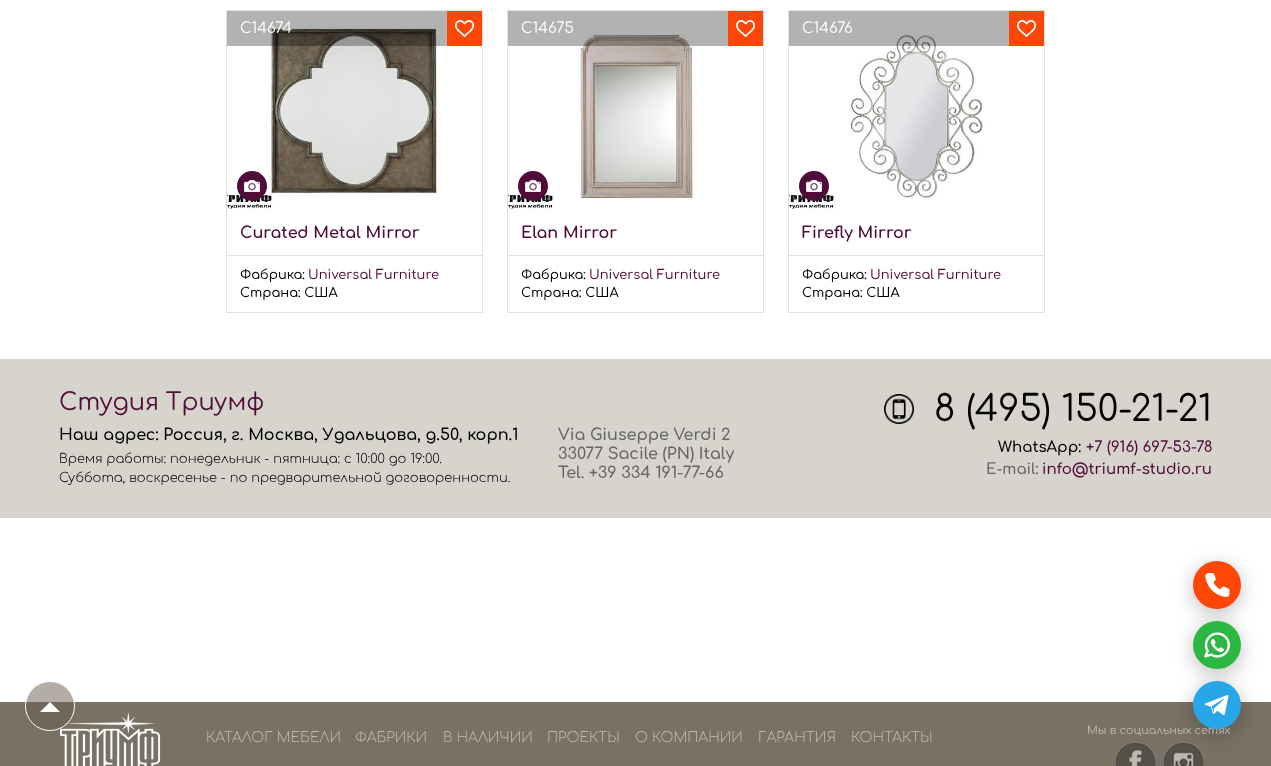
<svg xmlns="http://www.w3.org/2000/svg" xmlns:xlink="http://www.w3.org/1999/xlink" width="1271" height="766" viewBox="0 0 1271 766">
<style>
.cls-1{font:15px Comfortaa;fill:#ffffff}
.cls-2{font:bold 16px Comfortaa;fill:#4f0c38}
.cls-3{font:500 13px Comfortaa;fill:#000000}
.cls-4{font:500 13px Comfortaa;fill:#4f0c38}
.cls-5{font:24px Comfortaa;fill:#4f0c38}
.cls-6{font:600 16px Comfortaa;fill:#000000}
.cls-7{font:300 13px Comfortaa;fill:#000000}
.cls-8{font:600 16px Comfortaa;fill:#666666}
.cls-9{font:36px Comfortaa;fill:#000000}
.cls-10{font:600 15px Comfortaa;fill:#000000}
.cls-11{font:600 15px Comfortaa;fill:#4f0c38}
.cls-12{font:600 15px Comfortaa;fill:#666666}
.cls-13{font:300 14px Comfortaa;fill:#bcb8b3}
.cls-14{font:500 11px Comfortaa;fill:#bcb8b3}
</style>
<rect width="100%" height="100%" fill="#ffffff"/>
<rect fill="none" stroke="#e0e0e0" x="226.5" y="10.5" width="256" height="302"/>
<image xlink:href="image0.png" x="227" y="11" width="255" height="200"/>
<rect fill="#000000" fill-opacity="0.3" x="227" y="11" width="220" height="35"/>
<rect fill="#fe4606" x="447" y="11" width="35" height="35"/>
<image xlink:href="image1.png" x="455" y="20" width="19" height="17"/>
<circle fill="#4f0c38" cx="252" cy="186" r="15"/>
<image xlink:href="image2.png" x="244" y="180" width="16" height="12"/>
<rect fill="#e0e0e0" x="227" y="255" width="255" height="1"/>
<rect fill="none" stroke="#e0e0e0" x="507.5" y="10.5" width="256" height="302"/>
<image xlink:href="image3.png" x="508" y="11" width="255" height="200"/>
<rect fill="#000000" fill-opacity="0.3" x="508" y="11" width="220" height="35"/>
<rect fill="#fe4606" x="728" y="11" width="35" height="35"/>
<image xlink:href="image1.png" x="736" y="20" width="19" height="17"/>
<circle fill="#4f0c38" cx="533" cy="186" r="15"/>
<image xlink:href="image2.png" x="525" y="180" width="16" height="12"/>
<rect fill="#e0e0e0" x="508" y="255" width="255" height="1"/>
<rect fill="none" stroke="#e0e0e0" x="788.5" y="10.5" width="256" height="302"/>
<image xlink:href="image4.png" x="789" y="11" width="255" height="200"/>
<rect fill="#000000" fill-opacity="0.3" x="789" y="11" width="220" height="35"/>
<rect fill="#fe4606" x="1009" y="11" width="35" height="35"/>
<image xlink:href="image1.png" x="1017" y="20" width="19" height="17"/>
<circle fill="#4f0c38" cx="814" cy="186" r="15"/>
<image xlink:href="image2.png" x="806" y="180" width="16" height="12"/>
<rect fill="#e0e0e0" x="789" y="255" width="255" height="1"/>
<rect fill="#d7d4cd" x="0" y="359" width="1271" height="159"/>
<image xlink:href="image5.png" x="884" y="394" width="30" height="30"/>
<rect fill="#797164" x="0" y="702" width="1271" height="64"/>
<image xlink:href="image6.png" x="60" y="712" width="101" height="54"/>
<circle fill="#675c4d" fill-opacity="0.5" stroke="#ffffff" cx="50" cy="706" r="24.5"/>
<path fill="#ffffff" d="M60 712H40L50 702Z"/>
<image xlink:href="image7.png" x="1115" y="742" width="42" height="24"/>
<image xlink:href="image8.png" x="1163" y="742" width="41" height="24"/>
<rect fill="#000000" fill-opacity="0.25" filter="blur(10px)" x="1193" y="566" width="48" height="48" rx="24"/>
<circle fill="#fe4606" cx="1217" cy="585" r="24"/>
<image xlink:href="image9.png" x="1205" y="573" width="25" height="24"/>
<rect fill="#000000" fill-opacity="0.25" filter="blur(10px)" x="1193" y="626" width="48" height="48" rx="24"/>
<circle fill="#2cb742" cx="1217" cy="645" r="24"/>
<image xlink:href="image10.png" x="1204" y="632" width="26" height="26"/>
<rect fill="#000000" fill-opacity="0.25" filter="blur(10px)" x="1193" y="686" width="48" height="48" rx="24"/>
<text class="cls-1" x="240" y="33">C14674</text>
<text class="cls-2" x="240" y="238">Curated Metal Mirror</text>
<text class="cls-3" x="240" y="279">Фабрика:</text>
<text class="cls-4" x="308" y="279">Universal Furniture</text>
<text class="cls-3" x="240" y="297">Страна: США</text>
<text class="cls-1" x="521" y="33">C14675</text>
<text class="cls-2" x="521" y="238">Elan Mirror</text>
<text class="cls-3" x="521" y="279">Фабрика:</text>
<text class="cls-4" x="589" y="279">Universal Furniture</text>
<text class="cls-3" x="521" y="297">Страна: США</text>
<text class="cls-1" x="802" y="33">C14676</text>
<text class="cls-2" x="802" y="238">Firefly Mirror</text>
<text class="cls-3" x="802" y="279">Фабрика:</text>
<text class="cls-4" x="870" y="279">Universal Furniture</text>
<text class="cls-3" x="802" y="297">Страна: США</text>
<text class="cls-5" x="59" y="410">Студия Триумф</text>
<text class="cls-6" x="59" y="440">Наш адрес: Россия, г. Москва, Удальцова, д.50, корп.1</text>
<text class="cls-7"><tspan x="59" y="463">Время работы: понедельник - пятница: с 10:00 до 19:00.</tspan><tspan x="59" y="482">Суббота, воскресенье - по предварительной договоренности.</tspan></text>
<text class="cls-8"><tspan x="558" y="440">Via Giuseppe Verdi 2</tspan><tspan x="558" y="459">33077 Sacile (PN) Italy</tspan><tspan x="558" y="478">Tel. +39 334 191-77-66</tspan></text>
<text class="cls-9" x="934" y="421">8 (495) 150-21-21</text>
<text class="cls-10" x="998" y="452">WhatsApp:</text>
<text class="cls-11" x="1086" y="452">+7 (916) 697-53-78</text>
<text class="cls-12" x="986" y="474">E-mail:</text>
<text class="cls-11" x="1042" y="474">info@triumf-studio.ru</text>
<text class="cls-13" x="206" y="742">КАТАЛОГ МЕБЕЛИ</text>
<text class="cls-13" x="355" y="742">ФАБРИКИ</text>
<text class="cls-13" x="443" y="742">В НАЛИЧИИ</text>
<text class="cls-13" x="547" y="742">ПРОЕКТЫ</text>
<text class="cls-13" x="635" y="742">О КОМПАНИИ</text>
<text class="cls-13" x="758" y="742">ГАРАНТИЯ</text>
<text class="cls-13" x="851" y="742">КОНТАКТЫ</text>
<text class="cls-14" x="1087" y="734">Мы в социальных сетях</text>
<circle fill="#27a7e7" cx="1217" cy="705" r="24"/>
<image xlink:href="image11.png" x="1204" y="695" width="25" height="20"/>
</svg>
